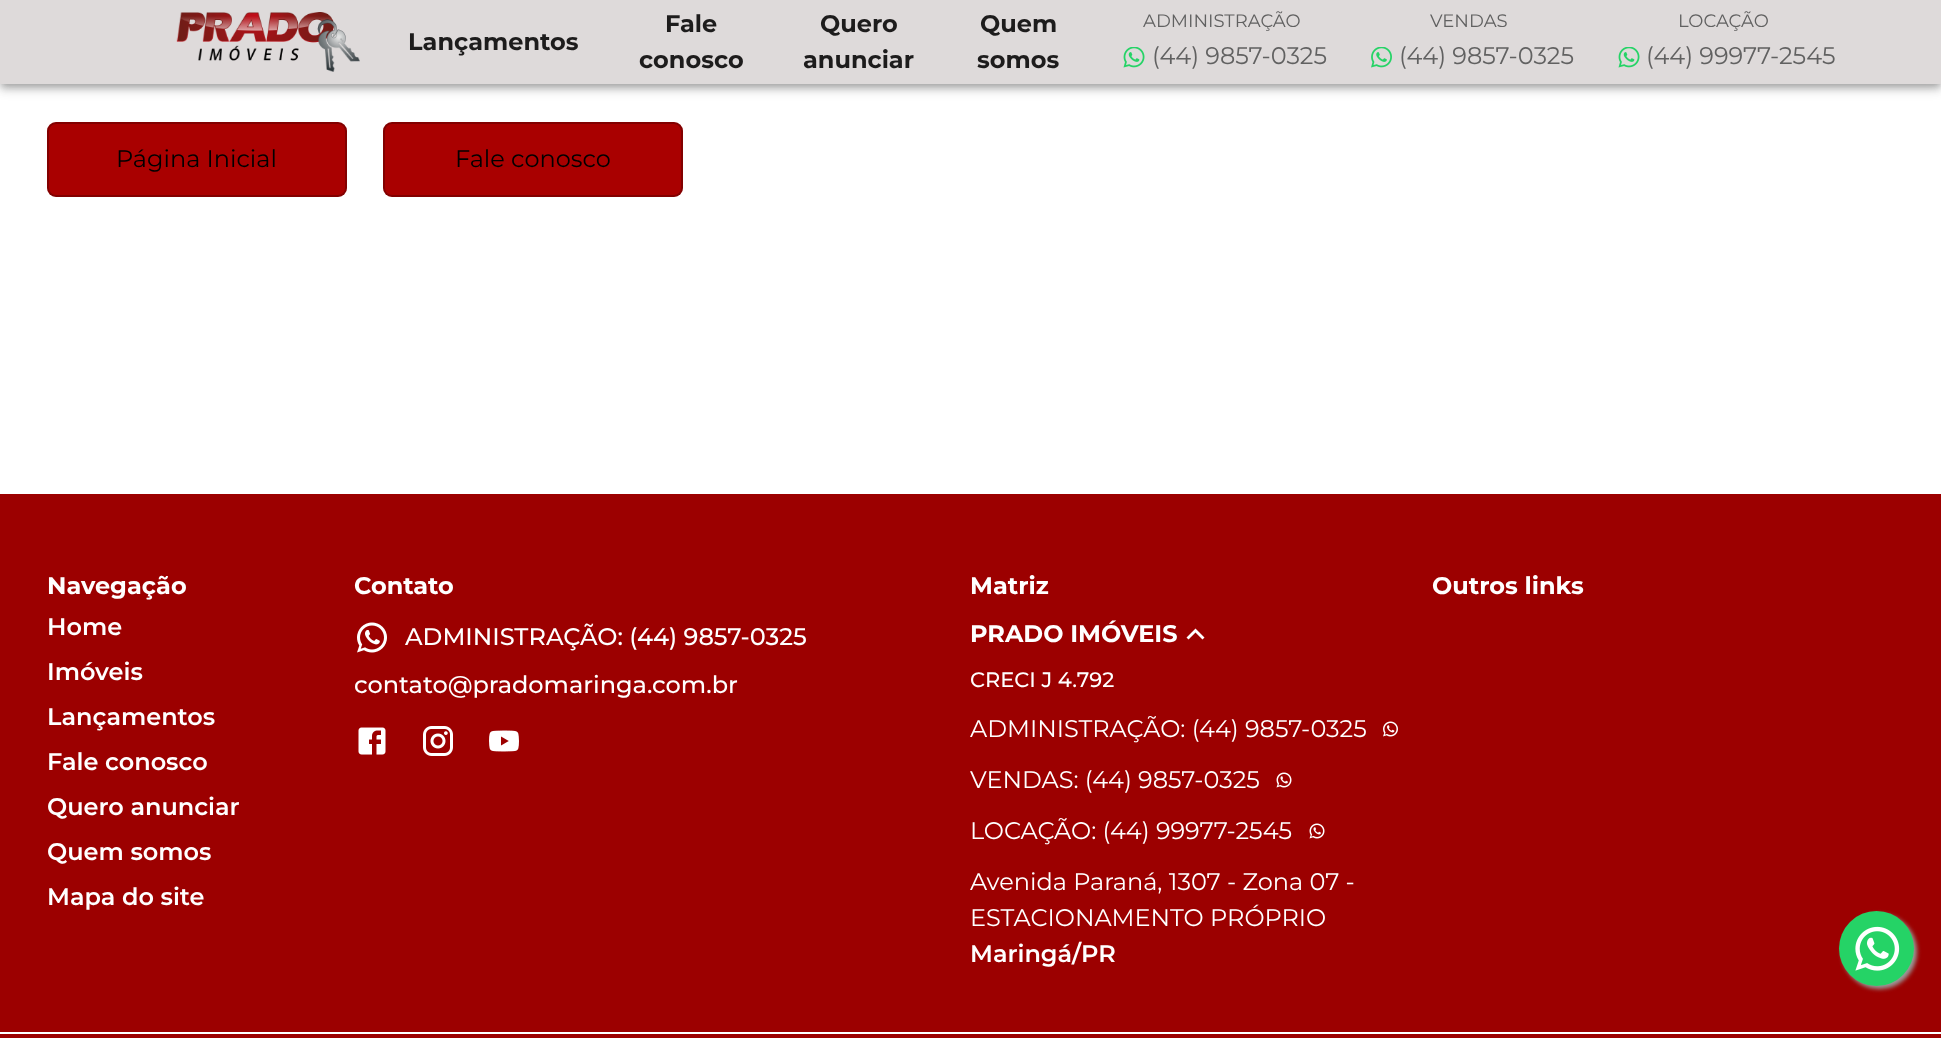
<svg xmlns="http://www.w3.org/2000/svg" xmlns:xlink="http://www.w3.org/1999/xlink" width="1941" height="1038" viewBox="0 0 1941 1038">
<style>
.cls-1{font:bold 24px Montserrat;fill:#1d1c1c}
.cls-2{font:18px Montserrat;fill:#616161}
.cls-3{font:24px Montserrat;fill:#616161}
.cls-4{font:24px Montserrat;fill:#000000}
.cls-5{font:bold 24px Montserrat;fill:#ffffff}
.cls-6{font:600 24px Montserrat;fill:#ffffff}
.cls-7{font:500 24px Montserrat;fill:#ffffff}
.cls-8{font:500 21px Montserrat;fill:#ffffff}
.cls-9{font:24px Montserrat;fill:#ffffff}
</style>
<rect width="100%" height="100%" fill="#ffffff"/>
<rect fill="#000000" fill-opacity="0.12" filter="blur(7.5px)" x="0" y="2" width="1941" height="84"/>
<rect fill="#000000" fill-opacity="0.14" filter="blur(4px)" x="0" y="6" width="1941" height="84"/>
<rect fill="#000000" fill-opacity="0.2" filter="blur(3px)" x="2" y="5" width="1938" height="81"/>
<rect fill="#dedada" x="0" y="0" width="1941" height="84"/>
<image xlink:href="image0.png" x="176" y="12" width="184" height="60"/>
<image xlink:href="image1.png" x="1123" y="47" width="22" height="21"/>
<image xlink:href="image2.png" x="1371" y="47" width="21" height="21"/>
<image xlink:href="image1.png" x="1618" y="47" width="22" height="21"/>
<rect fill="#a90000" x="47" y="122" width="300" height="75" rx="9"/>
<rect fill="none" stroke="#000000" stroke-opacity="0.23" stroke-width="2" x="48" y="123" width="298" height="73" rx="8"/>
<rect fill="#a90000" x="383" y="122" width="300" height="75" rx="9"/>
<rect fill="none" stroke="#000000" stroke-opacity="0.23" stroke-width="2" x="384" y="123" width="298" height="73" rx="8"/>
<rect fill="#9c0000" x="0" y="494" width="1941" height="544"/>
<image xlink:href="image3.png" x="357" y="622" width="30" height="31"/>
<image xlink:href="image4.png" x="358" y="727" width="28" height="28"/>
<image xlink:href="image5.png" x="423" y="726" width="30" height="30"/>
<image xlink:href="image6.png" x="489" y="730" width="30" height="22"/>
<path fill="#ffffff" d="M1195.5 628.5L1186.5 637.5L1188.5 639.5L1195.5 632.5L1202.5 639.5L1204.5 637.5Z"/>
<image xlink:href="image7.png" x="1383" y="721" width="15" height="16"/>
<image xlink:href="image8.png" x="1276" y="772" width="16" height="16"/>
<image xlink:href="image8.png" x="1309" y="823" width="16" height="16"/>
<rect fill="#ffffff" x="0" y="1032" width="1941" height="2"/>
<rect fill="#999999" filter="blur(2px)" x="1842" y="914" width="75" height="75" rx="37.5"/>
<circle fill="#25d366" cx="1876.5" cy="948.5" r="37.5"/>
<image xlink:href="image9.png" x="1855" y="926" width="45" height="45"/>
<text class="cls-1" x="408" y="50">Lançamentos</text>
<text class="cls-1" x="665" y="32">Fale</text>
<text class="cls-1" x="639" y="68">conosco</text>
<text class="cls-1" x="820" y="32">Quero</text>
<text class="cls-1" x="803" y="68">anunciar</text>
<text class="cls-1" x="980" y="32">Quem</text>
<text class="cls-1" x="977" y="68">somos</text>
<text class="cls-2" x="1143" y="27">ADMINISTRAÇÃO</text>
<text class="cls-3" x="1152" y="64">(44) 9857-0325</text>
<text class="cls-2" x="1430" y="27">VENDAS</text>
<text class="cls-3" x="1399" y="64">(44) 9857-0325</text>
<text class="cls-2" x="1678" y="27">LOCAÇÃO</text>
<text class="cls-3" x="1646" y="64">(44) 99977-2545</text>
<text class="cls-4" x="116" y="167">Página Inicial</text>
<text class="cls-4" x="455" y="167">Fale conosco</text>
<text class="cls-5" x="47" y="594">Navegação</text>
<text class="cls-6"><tspan x="47" y="635">Home</tspan><tspan x="47" y="680">Imóveis</tspan><tspan x="47" y="725">Lançamentos</tspan><tspan x="47" y="770">Fale conosco</tspan><tspan x="47" y="815">Quero anunciar</tspan><tspan x="47" y="860">Quem somos</tspan><tspan x="47" y="905">Mapa do site</tspan></text>
<text class="cls-5" x="354" y="594">Contato</text>
<text class="cls-7" x="405" y="645">ADMINISTRAÇÃO: (44) 9857-0325</text>
<text class="cls-7" x="354" y="693">contato@pradomaringa.com.br</text>
<text class="cls-5" x="970" y="594">Matriz</text>
<text class="cls-5" x="970" y="642">PRADO IMÓVEIS</text>
<text class="cls-8" x="970" y="687">CRECI J 4.792</text>
<text class="cls-9" x="970" y="737">ADMINISTRAÇÃO: (44) 9857-0325</text>
<text class="cls-9" x="970" y="788">VENDAS: (44) 9857-0325</text>
<text class="cls-9" x="970" y="839">LOCAÇÃO: (44) 99977-2545</text>
<text class="cls-9"><tspan x="970" y="890">Avenida Paraná, 1307 - Zona 07 -</tspan><tspan x="970" y="926">ESTACIONAMENTO PRÓPRIO</tspan></text>
<text class="cls-6" x="970" y="962">Maringá/PR</text>
<text class="cls-5" x="1432" y="594">Outros links</text>
</svg>
